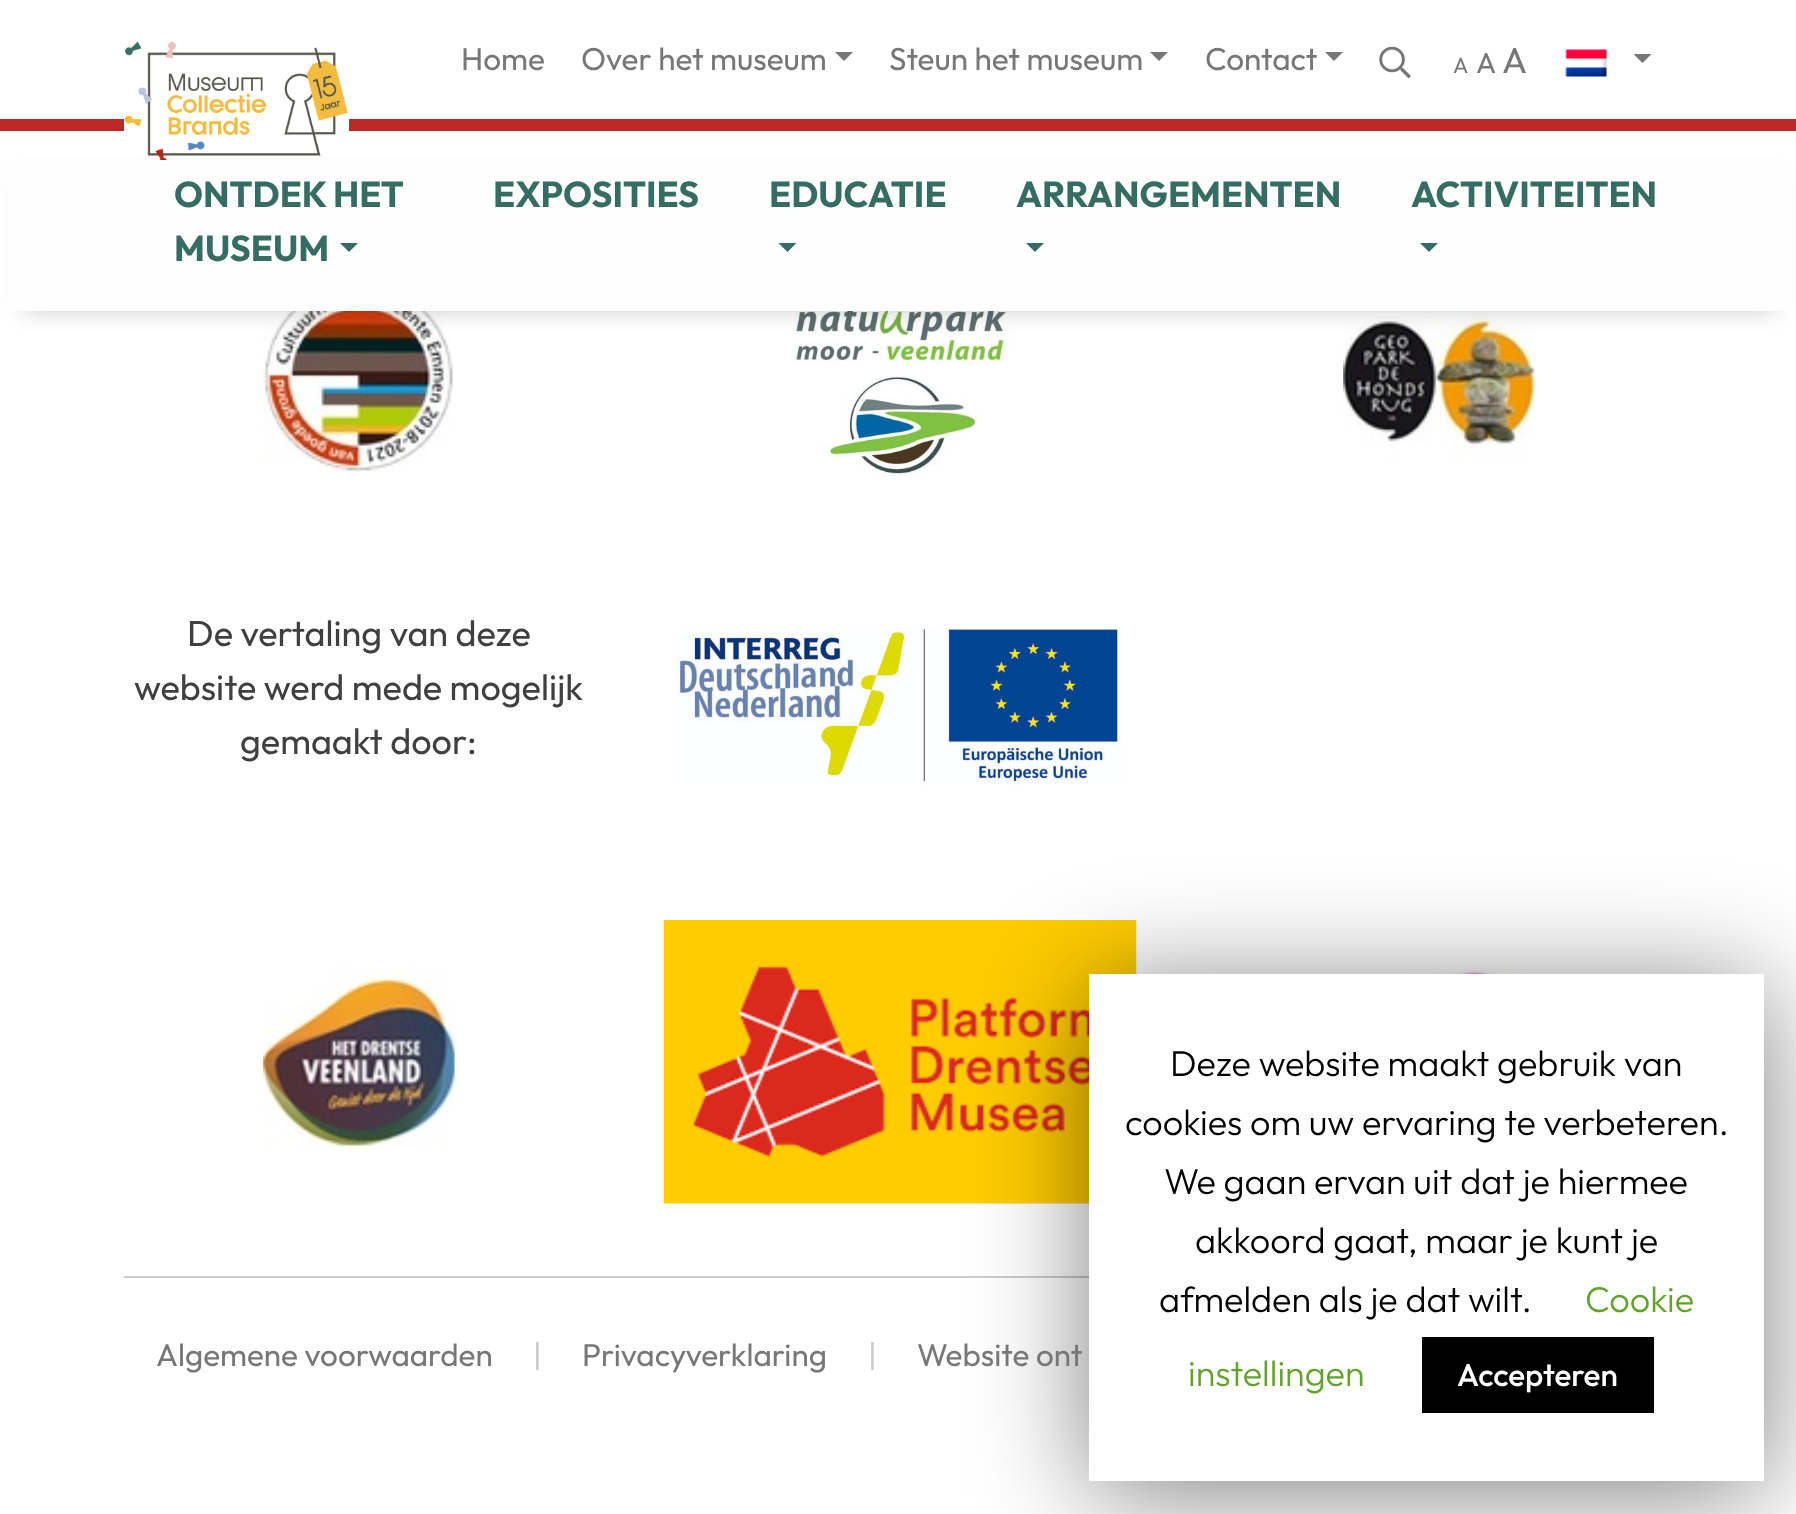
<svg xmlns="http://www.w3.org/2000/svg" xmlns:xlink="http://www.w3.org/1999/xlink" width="1796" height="1514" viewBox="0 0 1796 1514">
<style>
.cls-1{font:31.5px Outfit;fill:#777777}
.cls-2{font:22px Outfit;fill:#777777}
.cls-3{font:29px Outfit;fill:#777777}
.cls-4{font:36px Outfit;fill:#777777}
.cls-5{font:bold 36px Outfit;fill:#366d63}
.cls-6{font:36px Outfit;fill:#404040}
.cls-7{font:31.5px Outfit;fill:#cccccc}
.cls-8{font:300 36px Outfit;fill:#000000}
.cls-9{font:300 36px Outfit;fill:#62a329}
.cls-10{font:500 31.5px Outfit;fill:#ffffff}
</style>
<rect width="100%" height="100%" fill="#ffffff"/>
<rect fill="#bc2926" x="0" y="119" width="1796" height="12"/>
<rect fill="#ffffff" x="124" y="119" width="225" height="12"/>
<image xlink:href="image3.png" x="263" y="311" width="190" height="161"/>
<image xlink:href="image4.png" x="793" y="311" width="220" height="166"/>
<image xlink:href="image5.png" x="1343" y="314" width="192" height="147"/>
<rect fill="#000000" fill-opacity="0.2" filter="blur(11px)" x="23" y="176" width="1752" height="135"/>
<image xlink:href="image0.png" x="124" y="41" width="224" height="119"/>
<path fill="#777777" d="M835 52H853L844 61Z"/>
<path fill="#777777" d="M1150 52H1168L1159 61Z"/>
<path fill="#777777" d="M1325 52H1343L1334 61Z"/>
<image xlink:href="image1.png" x="1379" y="46" width="32" height="33"/>
<image xlink:href="image2.png" x="1565" y="49" width="42" height="28"/>
<path fill="#777777" d="M1633.5 54H1651.5L1642.5 63Z"/>
<rect fill="#fefefe" x="7" y="160" width="1784" height="151"/>
<path fill="#366d63" d="M340 243H358L349 252Z"/>
<path fill="#366d63" d="M778.5 243H796.5L787.5 252Z"/>
<path fill="#366d63" d="M1026 243H1044L1035 252Z"/>
<path fill="#366d63" d="M1420 243H1438L1429 252Z"/>
<image xlink:href="image6.png" x="678" y="628" width="444" height="157"/>
<image xlink:href="image7.png" x="263" y="967" width="192" height="183"/>
<image xlink:href="image8.png" x="663" y="920" width="474" height="284"/>
<image xlink:href="image9.png" x="1343" y="967" width="183" height="7"/>
<rect fill="#cccccc" x="124" y="1276" width="965" height="2"/>
<rect fill="#000000" fill-opacity="0.5" filter="blur(56px)" x="1089" y="986" width="675" height="506"/>
<rect fill="#ffffff" x="1089" y="974" width="675" height="507"/>
<rect fill="#000000" x="1422" y="1337" width="232" height="76"/>
<text class="cls-1" x="461" y="70">Home</text>
<text class="cls-1" x="581" y="70">Over het museum</text>
<text class="cls-1" x="889" y="70">Steun het museum</text>
<text class="cls-1" x="1205" y="70">Contact</text>
<text class="cls-2" x="1453" y="73">A</text>
<text class="cls-3" x="1476" y="73">A</text>
<text class="cls-4" x="1502" y="73">A</text>
<text class="cls-5"><tspan x="174" y="207">ONTDEK HET</tspan><tspan x="174" y="261">MUSEUM</tspan></text>
<text class="cls-5" x="493" y="207">EXPOSITIES</text>
<text class="cls-5" x="769" y="207">EDUCATIE</text>
<text class="cls-5" x="1016" y="207">ARRANGEMENTEN</text>
<text class="cls-5" x="1411" y="207">ACTIVITEITEN</text>
<text class="cls-6" x="187" y="646">De vertaling van deze</text>
<text class="cls-6" x="134" y="700">website werd mede mogelijk</text>
<text class="cls-6" x="240" y="754">gemaakt door:</text>
<text class="cls-1" x="156" y="1366">Algemene voorwaarden</text>
<text class="cls-7" x="533" y="1366">|</text>
<text class="cls-1" x="582" y="1366">Privacyverklaring</text>
<text class="cls-7" x="868" y="1366">|</text>
<text class="cls-1" x="917" y="1366">Website ont</text>
<text class="cls-8" x="1170" y="1076">Deze website maakt gebruik van</text>
<text class="cls-8" x="1125" y="1135">cookies om uw ervaring te verbeteren.</text>
<text class="cls-8" x="1164" y="1194">We gaan ervan uit dat je hiermee</text>
<text class="cls-8" x="1195" y="1253">akkoord gaat, maar je kunt je</text>
<text class="cls-8" x="1159" y="1312">afmelden als je dat wilt.</text>
<text class="cls-9" x="1585" y="1312">Cookie</text>
<text class="cls-9" x="1188" y="1386">instellingen</text>
<text class="cls-10" x="1457" y="1386">Accepteren</text>
</svg>
